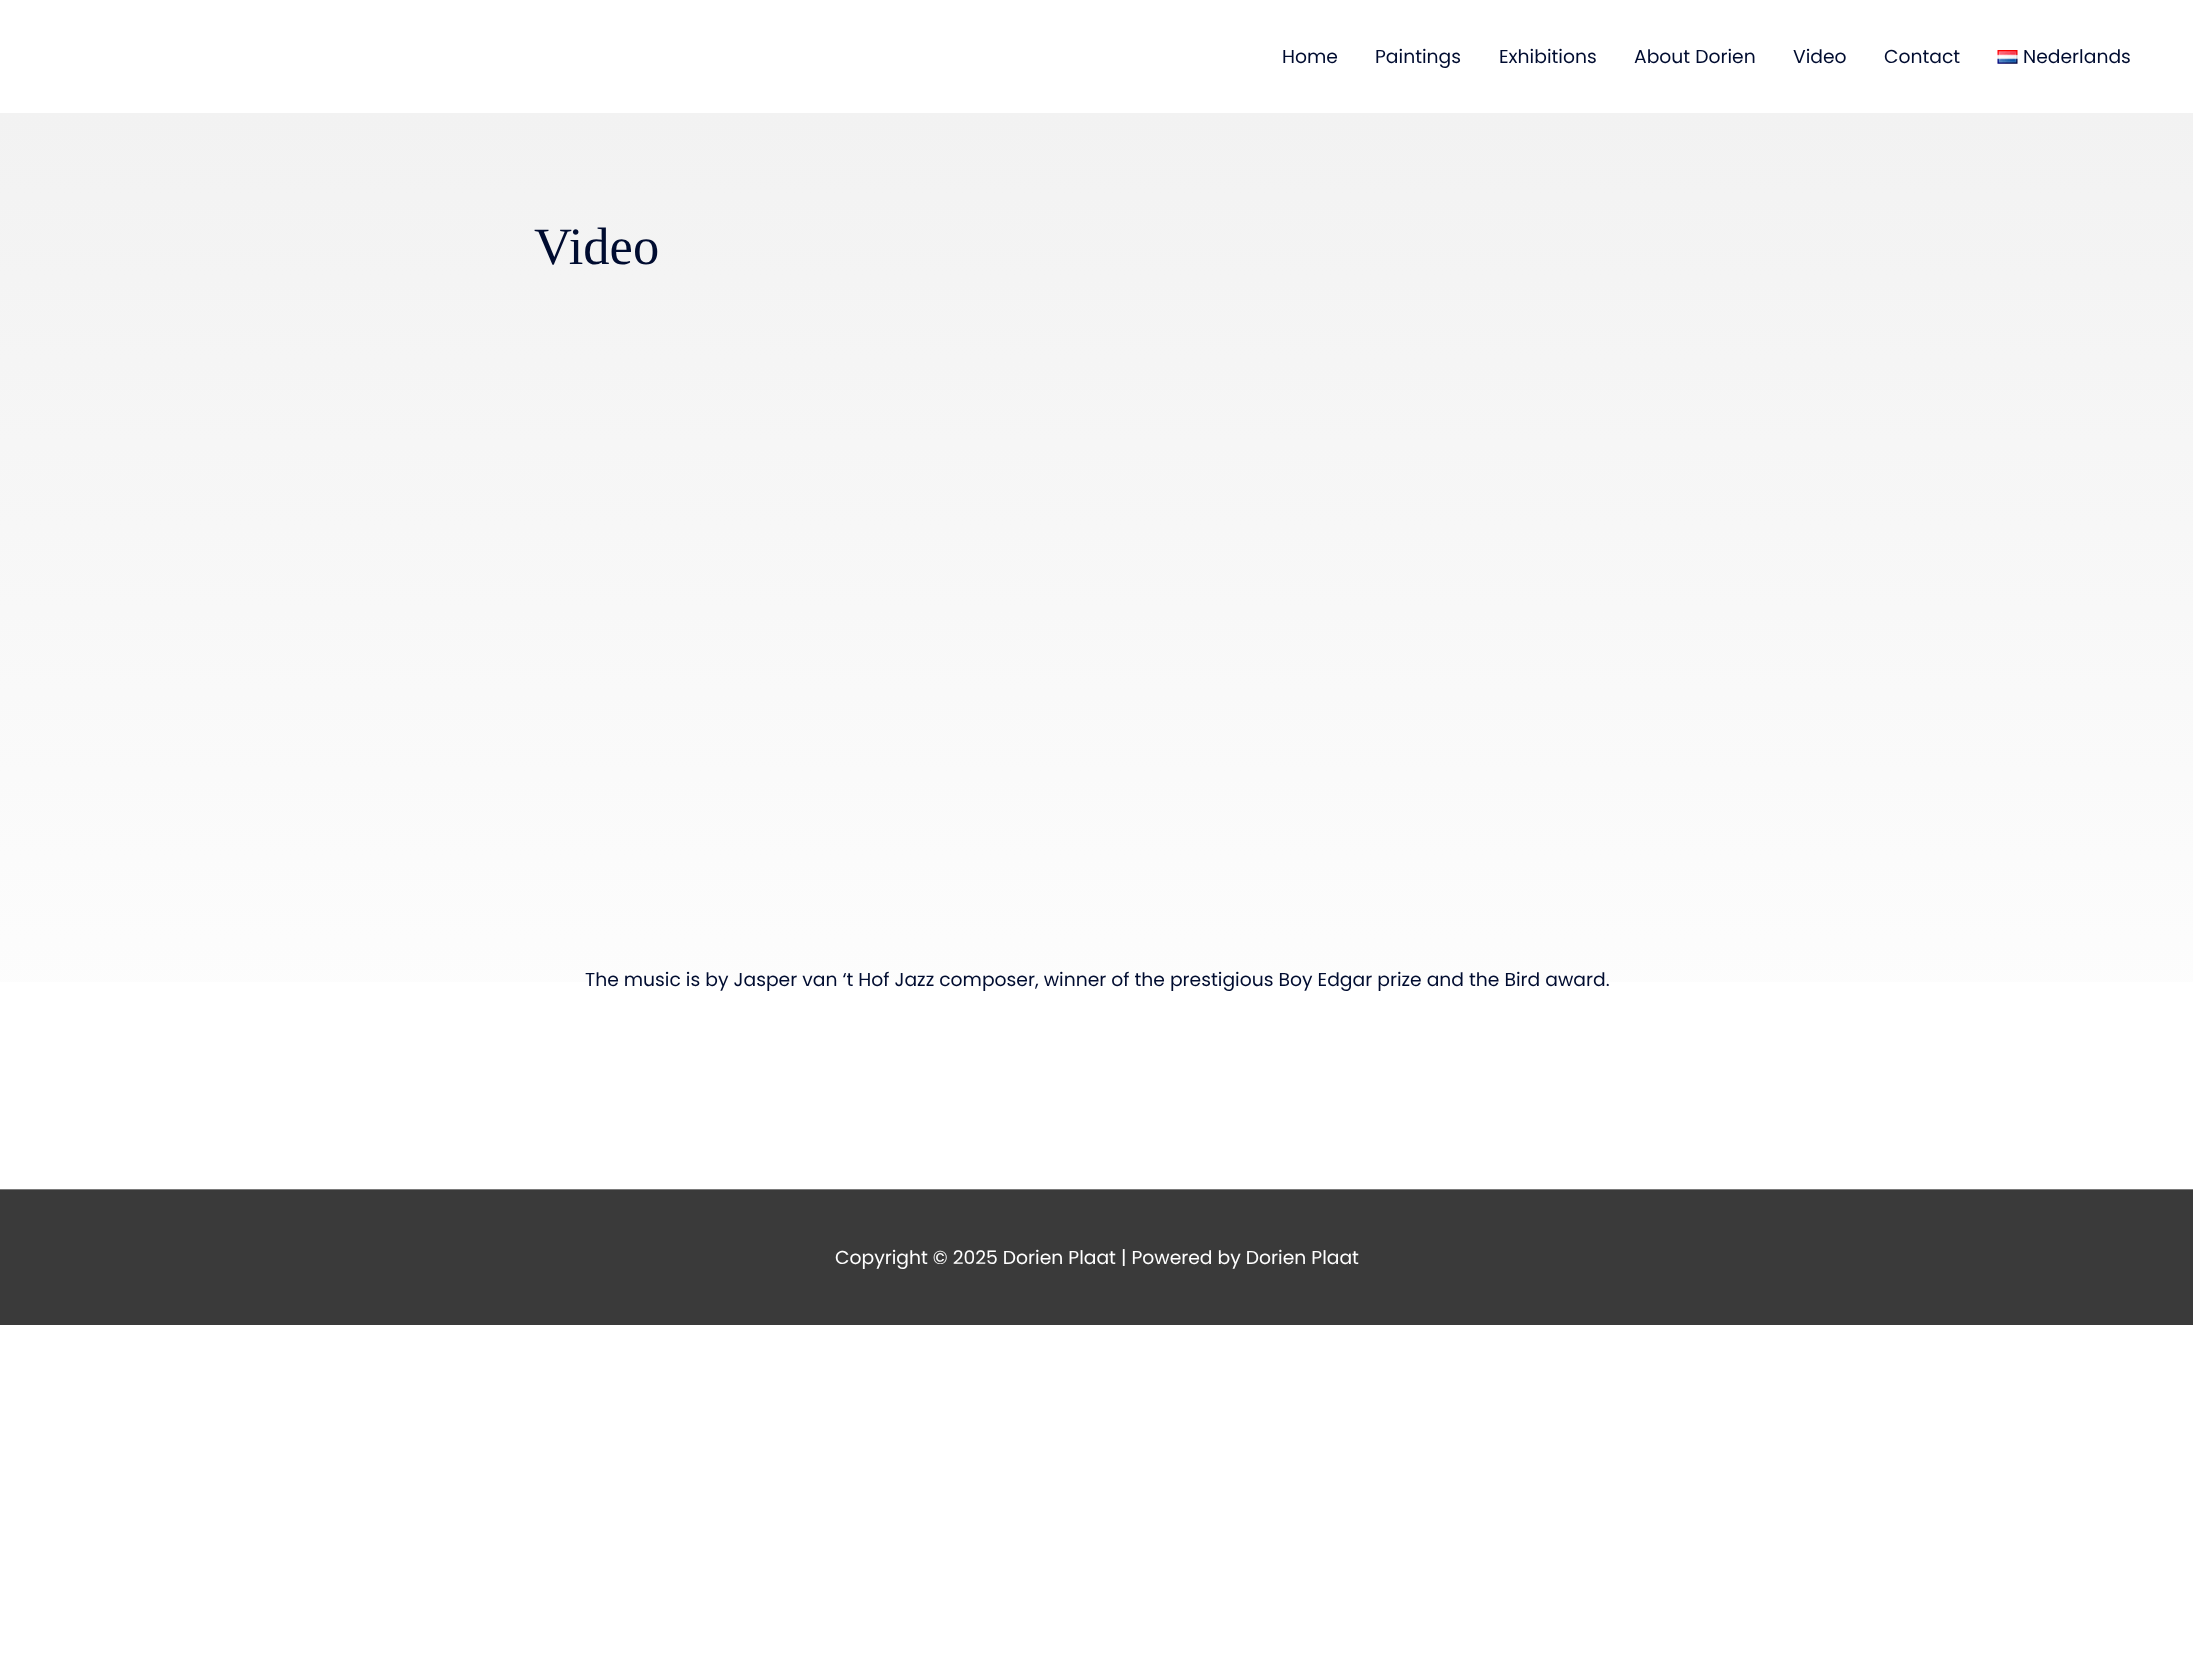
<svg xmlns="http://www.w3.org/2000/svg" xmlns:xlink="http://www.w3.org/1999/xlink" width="2193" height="1680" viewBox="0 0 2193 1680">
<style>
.cls-1{font:18.75px Poppins;fill:#000c30}
.cls-2{font:52.5px Liberation Serif;fill:#000c30}
.cls-3{font:18.75px Poppins;fill:#ffffff}
</style>
<defs>
<linearGradient id="g1" gradientUnits="userSpaceOnUse" x1="1097" y1="112" x2="1097" y2="1189"><stop offset="0" stop-color="#f2f2f2"/><stop offset="1" stop-color="#ffffff"/></linearGradient>
</defs>
<rect width="100%" height="100%" fill="#ffffff"/>
<image xlink:href="image0.png" x="1997" y="50" width="21" height="14"/>
<rect fill="url(#g1)" x="0" y="113" width="2193" height="869"/>
<rect fill="#7a7a7a" x="0" y="1189" width="2193" height="1"/>
<rect fill="#3a3a3a" x="0" y="1190" width="2193" height="135"/>
<text class="cls-1" x="1282" y="63">Home</text>
<text class="cls-1" x="1375" y="63">Paintings</text>
<text class="cls-1" x="1499" y="63">Exhibitions</text>
<text class="cls-1" x="1634" y="63">About Dorien</text>
<text class="cls-1" x="1793" y="63">Video</text>
<text class="cls-1" x="1884" y="63">Contact</text>
<text class="cls-1" x="2023" y="63">Nederlands</text>
<text class="cls-2" x="534" y="264">Video</text>
<text class="cls-1" x="585" y="986">The music is by Jasper van ‘t Hof Jazz composer, winner of the prestigious Boy Edgar prize and the Bird award.</text>
<text class="cls-3" x="835" y="1264">Copyright © 2025 Dorien Plaat | Powered by Dorien Plaat</text>
</svg>
